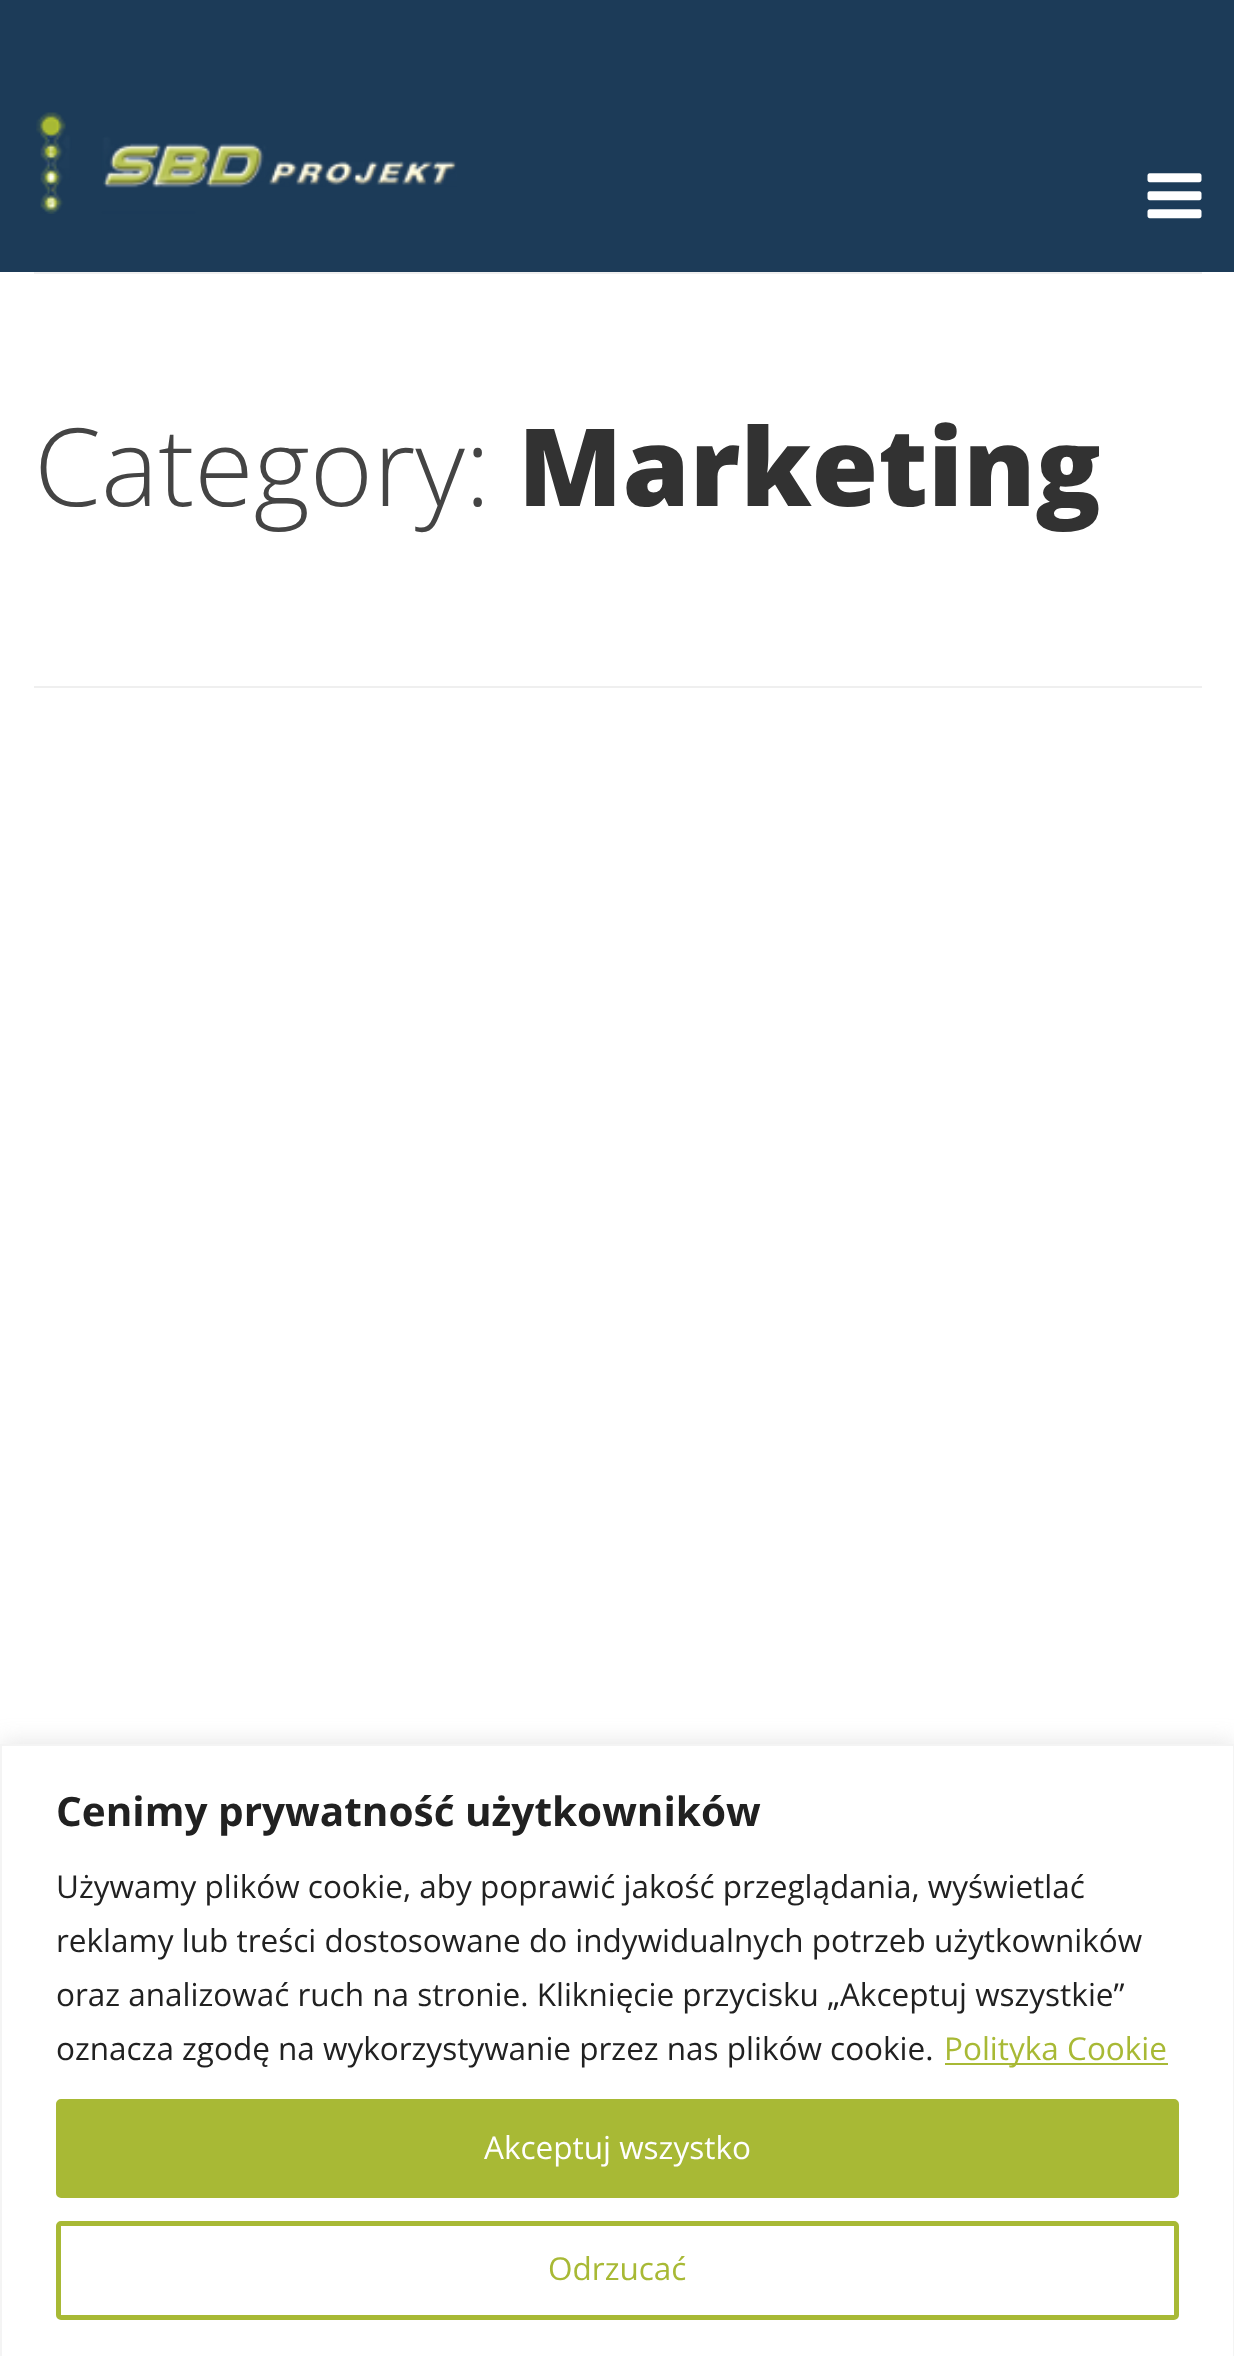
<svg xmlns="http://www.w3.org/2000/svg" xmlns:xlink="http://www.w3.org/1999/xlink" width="1234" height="2356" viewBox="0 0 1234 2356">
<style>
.cls-1{font:300 108px Open Sans;fill:#444444}
.cls-2{font:800 108px Open Sans;fill:#323232}
.cls-3{font:bold 40.5px Open Sans;fill:#212121}
.cls-4{font:31.5px Open Sans;fill:#212121}
.cls-5{font:31.5px Open Sans;fill:#a8b935}
.cls-6{font:31.5px Open Sans;fill:#ffffff}
</style>
<rect width="100%" height="100%" fill="#ffffff"/>
<rect fill="#1c3b58" x="0" y="0" width="1234" height="272"/>
<image xlink:href="image0.png" x="36" y="112" width="421" height="102"/>
<image xlink:href="image1.png" x="1147" y="173" width="55" height="46"/>
<rect fill="#efefef" x="34" y="272" width="1168" height="2"/>
<rect fill="#efefef" x="34" y="686" width="1168" height="2"/>
<rect fill="#acabab" fill-opacity="0.3" filter="blur(11px)" x="0" y="1742" width="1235" height="614"/>
<rect fill="#ffffff" stroke="#f4f4f4" stroke-width="2" x="1" y="1745" width="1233" height="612"/>
<rect fill="#a8b935" x="945" y="2063" width="223" height="2"/>
<rect fill="#a8b935" stroke="#a8b935" stroke-width="5" x="58.5" y="2101.5" width="1118" height="94" rx="2.5"/>
<rect fill="none" stroke="#a8b935" stroke-width="5" x="58.5" y="2223.5" width="1118" height="94" rx="2.5"/>
<text class="cls-1" x="34" y="506">Category:</text>
<text class="cls-2" x="518" y="506">Marketing</text>
<text class="cls-3" x="56" y="1826">Cenimy prywatność użytkowników</text>
<text class="cls-4"><tspan x="56" y="1898">Używamy plików cookie, aby poprawić jakość przeglądania, wyświetlać</tspan><tspan x="56" y="1952">reklamy lub treści dostosowane do indywidualnych potrzeb użytkowników</tspan><tspan x="56" y="2006">oraz analizować ruch na stronie. Kliknięcie przycisku „Akceptuj wszystkie”</tspan><tspan x="56" y="2060">oznacza zgodę na wykorzystywanie przez nas plików cookie.</tspan></text>
<text class="cls-5" x="944" y="2060">Polityka Cookie</text>
<text class="cls-6" x="484" y="2159">Akceptuj wszystko</text>
<text class="cls-5" x="548" y="2280">Odrzucać</text>
</svg>
